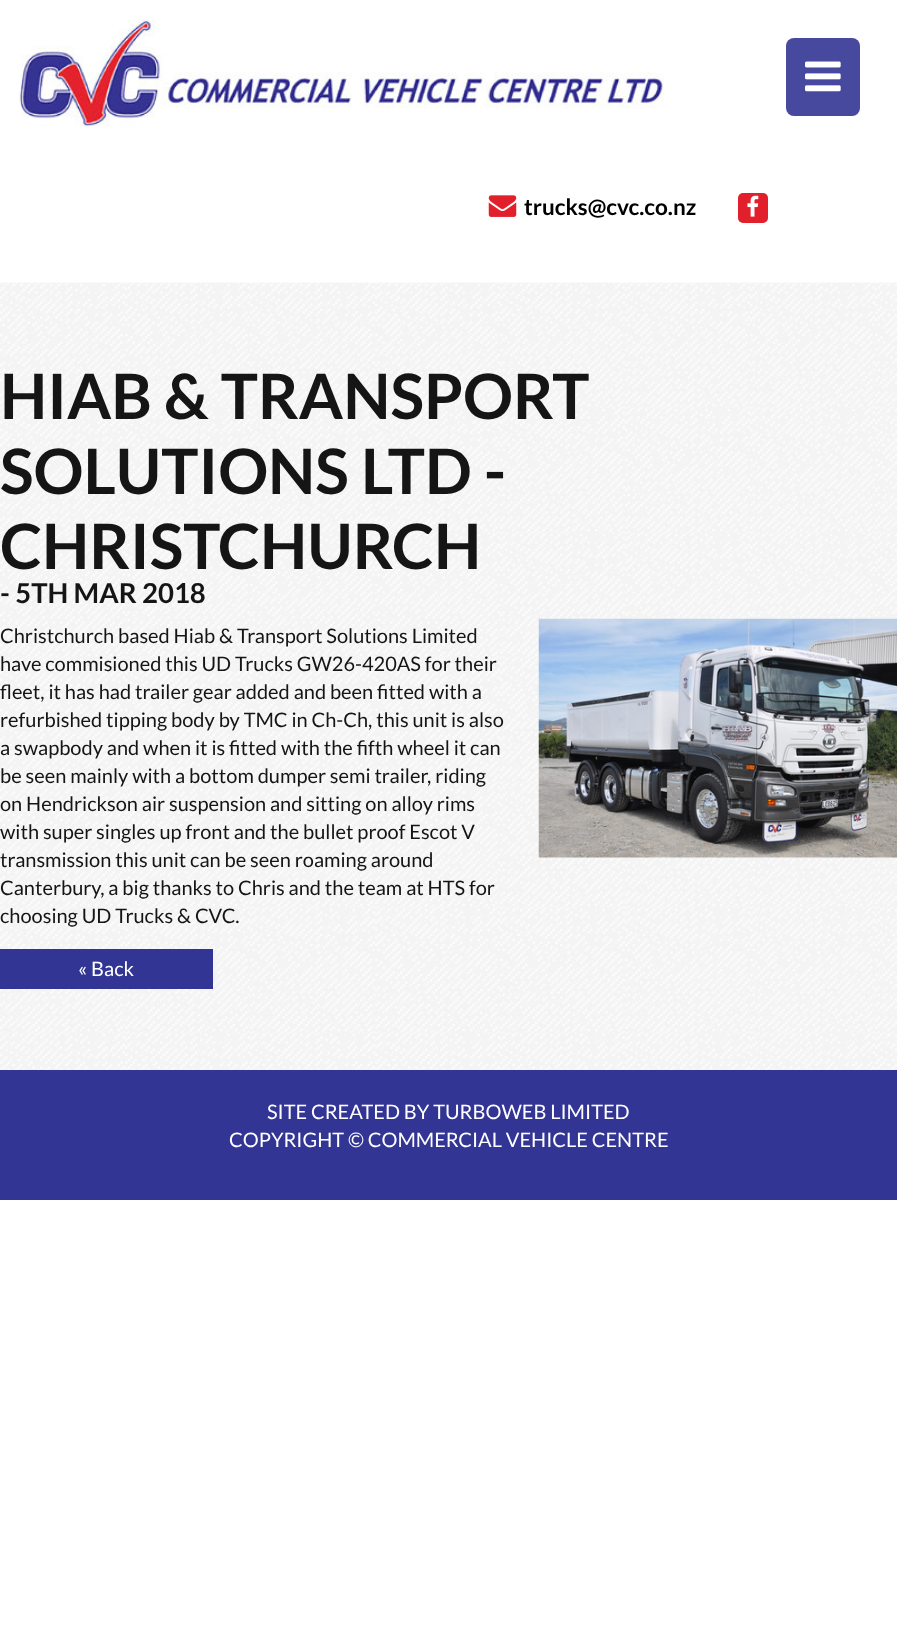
<svg xmlns="http://www.w3.org/2000/svg" xmlns:xlink="http://www.w3.org/1999/xlink" width="897" height="1649" viewBox="0 0 897 1649">
<style>
.cls-1{font:bold 22.5px Lato;fill:#000000}
.cls-2{font:bold 62.5px Lato;fill:#151515}
.cls-3{font:bold 27.5px Lato;fill:#151515}
.cls-4{font:20px Lato;fill:#151515}
.cls-5{font:20px Lato;fill:#ffffff}
</style>
<rect width="100%" height="100%" fill="#ffffff"/>
<image xlink:href="image0.png" x="19" y="18" width="645" height="109"/>
<rect fill="#47499f" x="786" y="38" width="74" height="78" rx="8"/>
<image xlink:href="image1.png" x="805" y="61" width="36" height="31"/>
<image xlink:href="image2.png" x="488" y="195" width="29" height="22"/>
<rect fill="#e1202b" x="738" y="193" width="30" height="30" rx="5"/>
<image xlink:href="image3.png" x="747" y="195" width="12" height="22"/>
<image xlink:href="image4.png" x="0" y="282" width="897" height="788"/>
<image xlink:href="image5.png" x="538" y="618" width="359" height="240"/>
<rect fill="#323594" x="0" y="949" width="213" height="40"/>
<rect fill="#323594" x="0" y="1070" width="897" height="130"/>
<text class="cls-1" x="524" y="215">trucks@cvc.co.nz</text>
<text class="cls-2"><tspan x="0" y="419">HIAB &amp; TRANSPORT</tspan><tspan x="0" y="494">SOLUTIONS LTD -</tspan><tspan x="0" y="569">CHRISTCHURCH</tspan></text>
<text class="cls-3" x="0" y="603">- 5TH MAR 2018</text>
<text class="cls-4"><tspan x="0" y="643">Christchurch based Hiab &amp; Transport Solutions Limited</tspan><tspan x="0" y="671">have commisioned this UD Trucks GW26-420AS for their</tspan><tspan x="0" y="699">fleet, it has had trailer gear added and been fitted with a</tspan><tspan x="0" y="727">refurbished tipping body by TMC in Ch-Ch, this unit is also</tspan><tspan x="0" y="755">a swapbody and when it is fitted with the fifth wheel it can</tspan><tspan x="0" y="783">be seen mainly with a bottom dumper semi trailer, riding</tspan><tspan x="0" y="811">on Hendrickson air suspension and sitting on alloy rims</tspan><tspan x="0" y="839">with super singles up front and the bullet proof Escot V</tspan><tspan x="0" y="867">transmission this unit can be seen roaming around</tspan><tspan x="0" y="895">Canterbury, a big thanks to Chris and the team at HTS for</tspan><tspan x="0" y="923">choosing UD Trucks &amp; CVC.</tspan></text>
<text class="cls-5" x="78" y="976">« Back</text>
<text class="cls-5" x="267" y="1119">SITE CREATED BY TURBOWEB LIMITED</text>
<text class="cls-5" x="229" y="1147">COPYRIGHT © COMMERCIAL VEHICLE CENTRE</text>
</svg>
